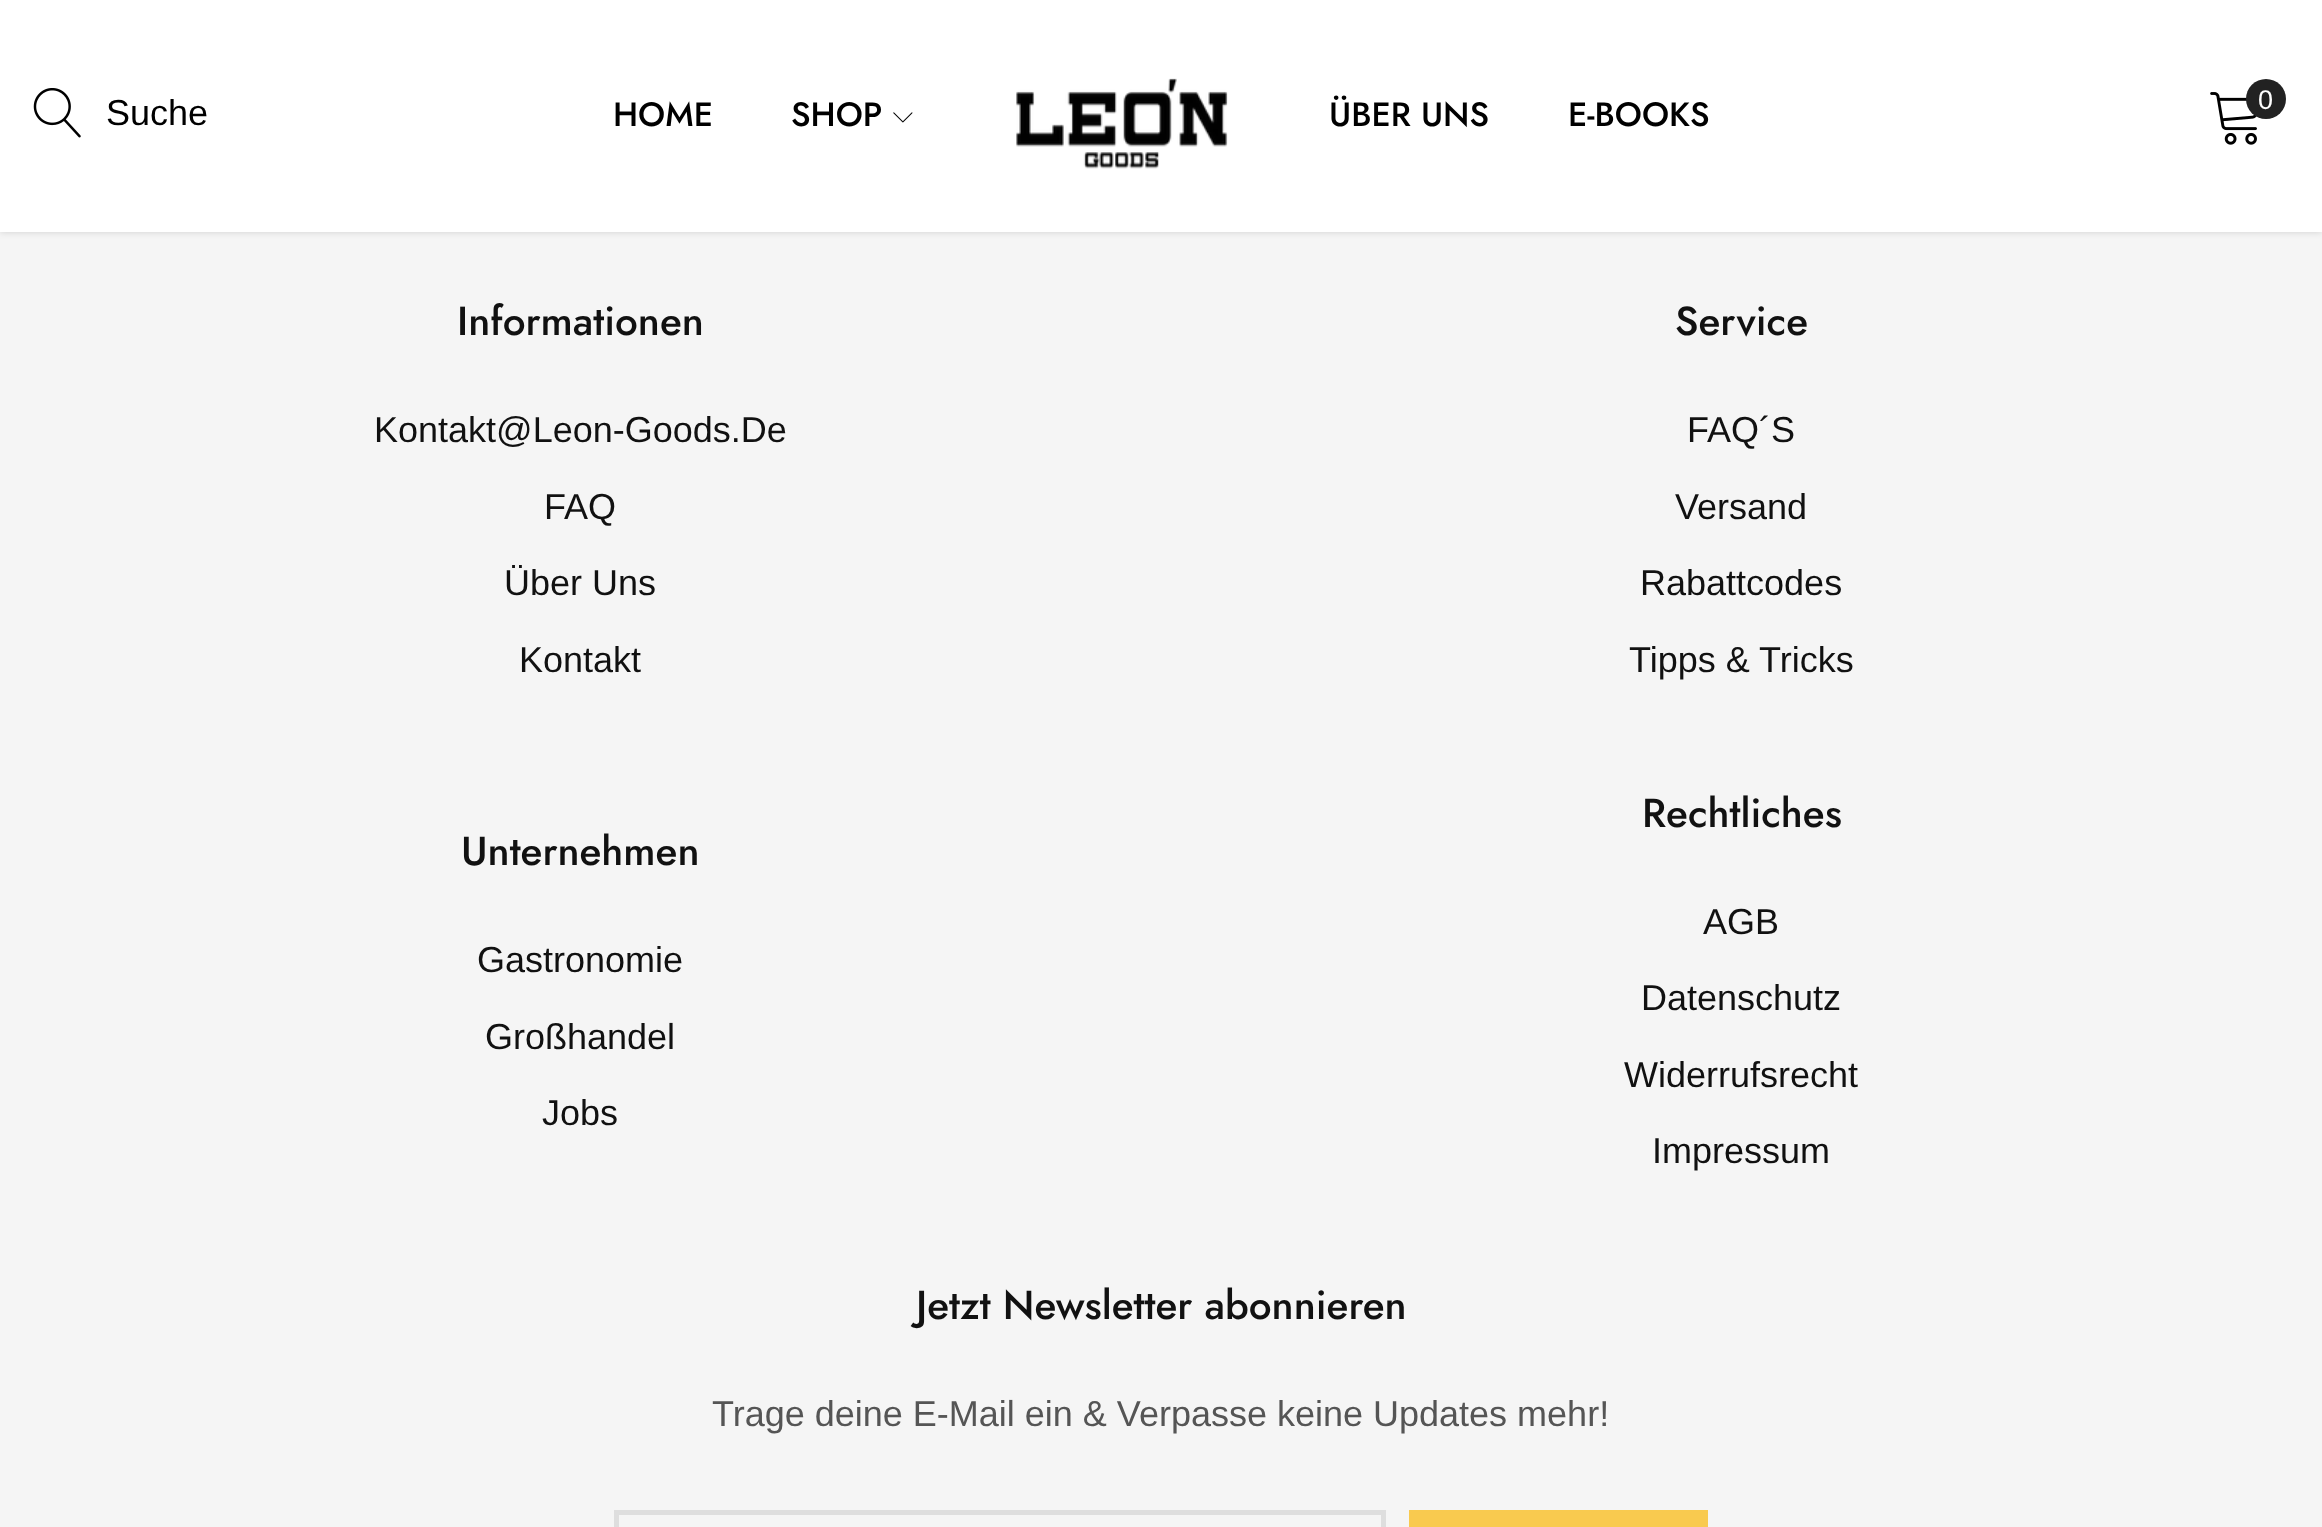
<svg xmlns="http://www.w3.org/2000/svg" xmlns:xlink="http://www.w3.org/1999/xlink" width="2322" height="1527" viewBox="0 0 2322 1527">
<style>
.cls-1{font:36px Liberation Sans;fill:#000000}
.cls-2{font:500 33.75px Jost;fill:#000000}
.cls-3{font:27px Liberation Sans;fill:#ffffff}
.cls-4{font:500 40.5px Jost;fill:#111111}
.cls-5{font:36px Liberation Sans;fill:#111111}
.cls-6{font:36px Liberation Sans;fill:#555555}
</style>
<rect width="100%" height="100%" fill="#f5f5f5"/>
<rect fill="#000000" fill-opacity="0.15" filter="blur(3.5px)" x="0" y="0" width="2322" height="232"/>
<rect fill="#ffffff" x="0" y="0" width="2322" height="232"/>
<image xlink:href="image0.png" x="33" y="88" width="48" height="50"/>
<image xlink:href="image1.png" x="893" y="112" width="20" height="11"/>
<image xlink:href="image2.png" x="1016" y="78" width="212" height="91"/>
<image xlink:href="image3.png" x="2210" y="92" width="47" height="53"/>
<circle fill="#222222" cx="2266" cy="99" r="20"/>
<rect fill="none" stroke="#dedede" stroke-width="5" x="616.5" y="1512.5" width="767" height="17"/>
<rect fill="#f9ca4f" x="1409" y="1510" width="299" height="17"/>
<text class="cls-1" x="106" y="125">Suche</text>
<text class="cls-2" x="613" y="126">HOME</text>
<text class="cls-2" x="791" y="126">SHOP</text>
<text class="cls-2" x="1329" y="126">ÜBER UNS</text>
<text class="cls-2" x="1568" y="126">E-BOOKS</text>
<text class="cls-3" x="2258" y="109">0</text>
<text class="cls-4" x="457" y="335">Informationen</text>
<text class="cls-5" x="374" y="442">Kontakt@Leon-Goods.De</text>
<text class="cls-5" x="544" y="519">FAQ</text>
<text class="cls-5" x="504" y="595">Über Uns</text>
<text class="cls-5" x="519" y="672">Kontakt</text>
<text class="cls-4" x="1675" y="335">Service</text>
<text class="cls-5" x="1687" y="442">FAQ´S</text>
<text class="cls-5" x="1675" y="519">Versand</text>
<text class="cls-5" x="1640" y="595">Rabattcodes</text>
<text class="cls-5" x="1629" y="672">Tipps &amp; Tricks</text>
<text class="cls-4" x="461" y="865">Unternehmen</text>
<text class="cls-5" x="477" y="972">Gastronomie</text>
<text class="cls-5" x="485" y="1049">Großhandel</text>
<text class="cls-5" x="542" y="1125">Jobs</text>
<text class="cls-4" x="1642" y="827">Rechtliches</text>
<text class="cls-5" x="1703" y="934">AGB</text>
<text class="cls-5" x="1641" y="1010">Datenschutz</text>
<text class="cls-5" x="1624" y="1087">Widerrufsrecht</text>
<text class="cls-5" x="1652" y="1163">Impressum</text>
<text class="cls-4" x="916" y="1319">Jetzt Newsletter abonnieren</text>
<text class="cls-6" x="712" y="1426">Trage deine E-Mail ein &amp; Verpasse keine Updates mehr!</text>
</svg>
